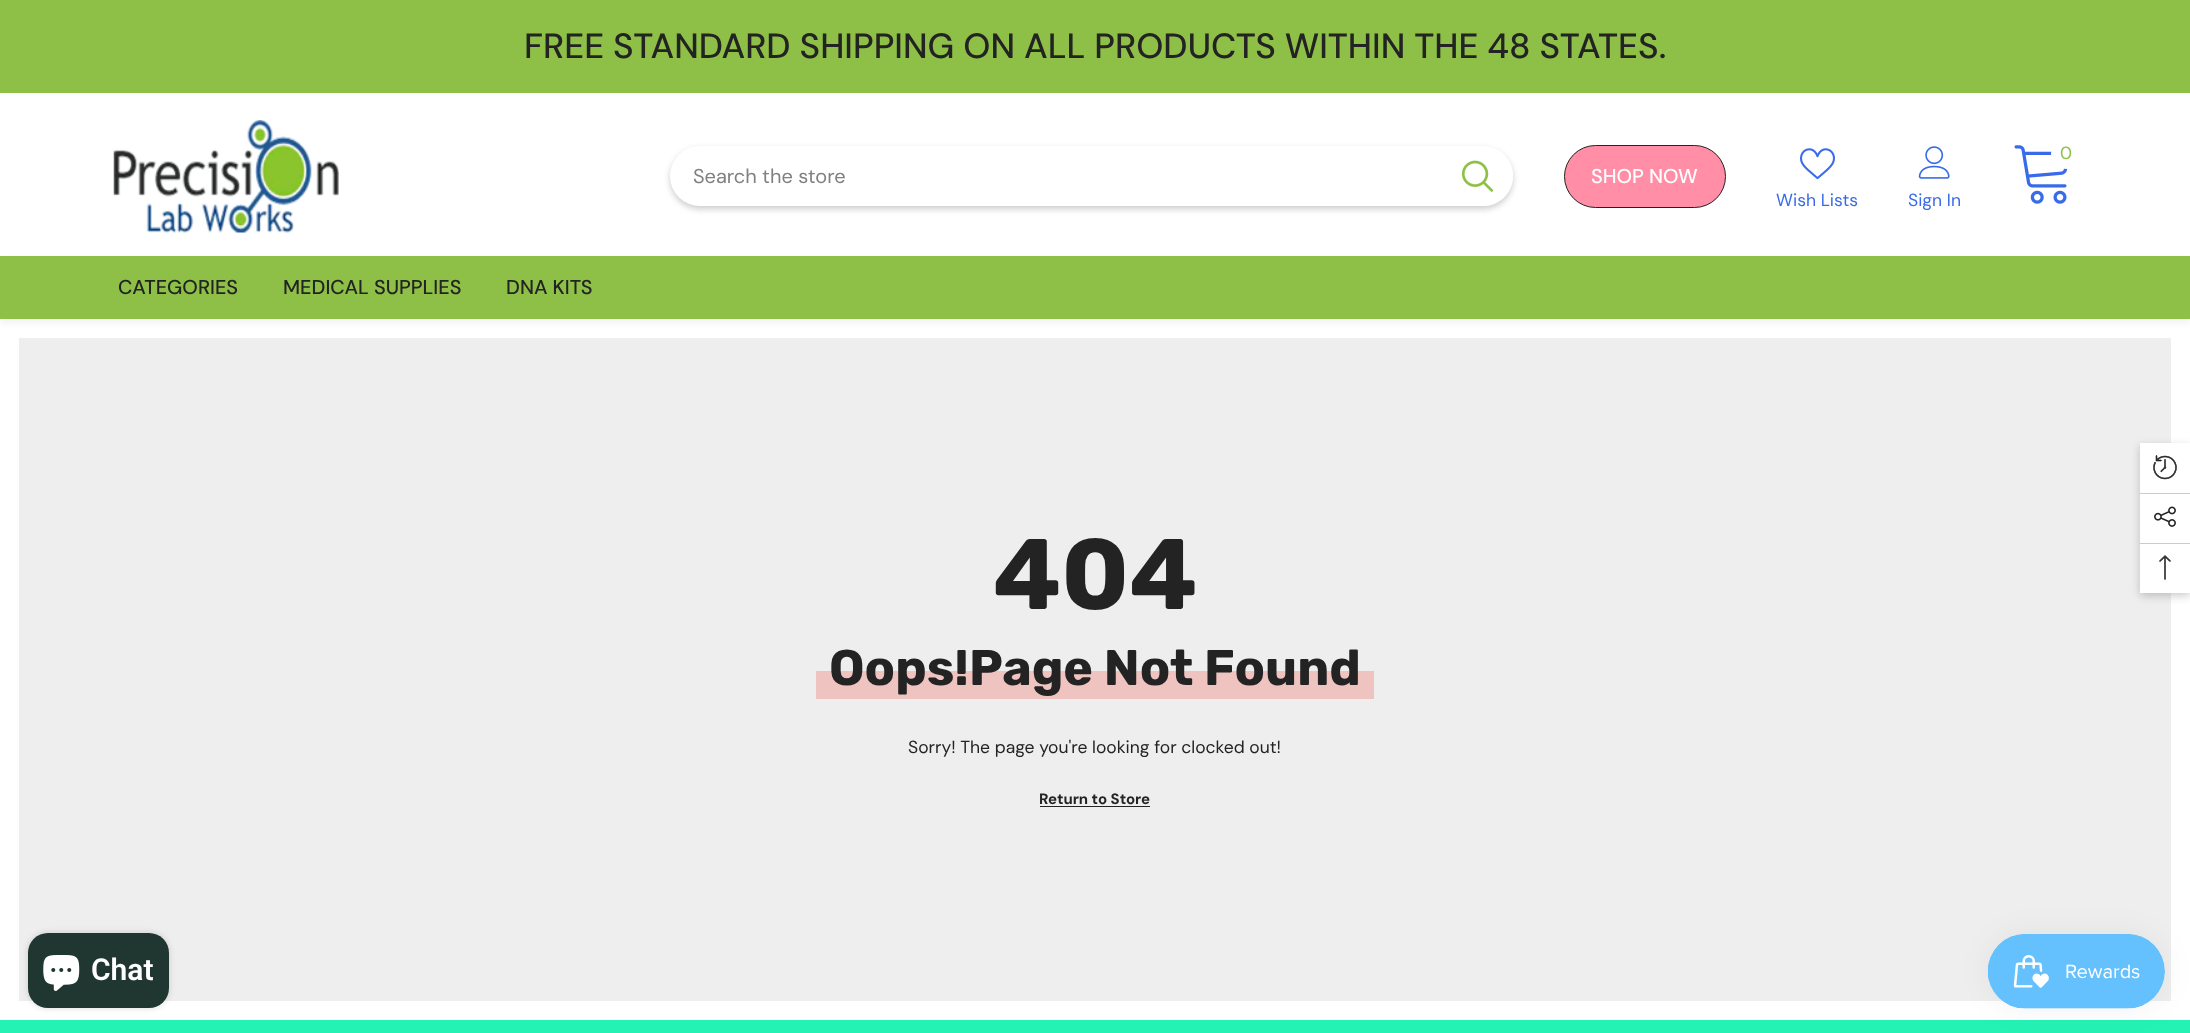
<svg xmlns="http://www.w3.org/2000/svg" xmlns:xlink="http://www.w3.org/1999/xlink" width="2190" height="1033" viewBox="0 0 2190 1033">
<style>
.cls-1{font:500 35px DM Sans;fill:#232323}
.cls-2{font:20px DM Sans;fill:#808080}
.cls-3{font:17.5px DM Sans;fill:#8ec048}
.cls-4{font:500 20px DM Sans;fill:#ffffff}
.cls-5{font:17.5px DM Sans;fill:#386be9}
.cls-6{font:500 20px DM Sans;fill:#232323}
.cls-7{font:bold 100px Rubik;fill:#232323}
.cls-8{font:bold 50px Rubik;fill:#232323}
.cls-9{font:17.5px DM Sans;fill:#232323}
.cls-10{font:bold 15px DM Sans;fill:#232323}
.cls-11{font:600 30px Roboto;fill:#ffffff}
</style>
<rect width="100%" height="100%" fill="#ffffff"/>
<rect fill="#8ec048" x="0" y="0" width="2190" height="93"/>
<image xlink:href="image0.png" x="113" y="120" width="226" height="113"/>
<rect fill="#000000" fill-opacity="0.2" filter="blur(3px)" x="670" y="149" width="843" height="60" rx="30"/>
<rect fill="#ffffff" x="670" y="146" width="843" height="60" rx="30"/>
<path fill="#ffffff" d="M1441 146H1483C1499.5 146 1513 159.5 1513 176C1513 192.5 1499.5 206 1483 206H1441Z"/>
<image xlink:href="image1.png" x="1461" y="160" width="33" height="32"/>
<image xlink:href="image2.png" x="2014" y="145" width="54" height="59"/>
<circle fill="#ffffff" cx="2066" cy="154" r="15"/>
<rect fill="#ff8ea6" stroke="#232323" x="1564.5" y="145.5" width="161" height="62" rx="31"/>
<image xlink:href="image3.png" x="1800" y="148" width="35" height="32"/>
<image xlink:href="image4.png" x="1918" y="146" width="32" height="33"/>
<rect fill="#000000" fill-opacity="0.05" filter="blur(3px)" x="0" y="260" width="2190" height="63"/>
<rect fill="#8ec048" x="0" y="256" width="2190" height="63"/>
<rect fill="#eeeeee" x="19" y="338" width="2152" height="663"/>
<rect fill="#efc3c0" x="816" y="671" width="558" height="28"/>
<rect fill="#232323" x="1040" y="806" width="110" height="1"/>
<rect fill="#24f2b4" x="0" y="1020" width="2190" height="13"/>
<rect fill="#000000" fill-opacity="0.2" filter="blur(4.5px)" x="2140" y="446" width="50" height="150"/>
<rect fill="#ffffff" x="2140" y="443" width="50" height="150"/>
<image xlink:href="image5.png" x="2153" y="455" width="24" height="25"/>
<rect fill="#cccccc" x="2140" y="493" width="50" height="1"/>
<image xlink:href="image6.png" x="2154" y="506" width="22" height="21"/>
<rect fill="#cccccc" x="2140" y="543" width="50" height="1"/>
<image xlink:href="image7.png" x="2159" y="555" width="12" height="25"/>
<rect fill="#000000" fill-opacity="0.15" filter="blur(3px)" x="28" y="933" width="141" height="75" rx="20"/>
<rect fill="#203630" x="28" y="933" width="141" height="75" rx="20"/>
<image xlink:href="image8.png" x="43" y="955" width="37" height="36"/>
<rect fill="#000000" fill-opacity="0.05" filter="blur(15.5px)" x="1988" y="934" width="177" height="75" rx="37.5"/>
<image xlink:href="image9.png" x="1987" y="934" width="178" height="75"/>
<text class="cls-1" x="524" y="58">FREE STANDARD SHIPPING ON ALL PRODUCTS WITHIN THE 48 STATES.</text>
<text class="cls-2" x="693" y="183">Search the store</text>
<text class="cls-3" x="2060" y="159">0</text>
<text class="cls-4" x="1591" y="183">SHOP NOW</text>
<text class="cls-5" x="1776" y="206">Wish Lists</text>
<text class="cls-5" x="1908" y="206">Sign In</text>
<text class="cls-6" x="118" y="294">CATEGORIES</text>
<text class="cls-6" x="283" y="294">MEDICAL SUPPLIES</text>
<text class="cls-6" x="506" y="294">DNA KITS</text>
<text class="cls-7" x="993" y="609">404</text>
<text class="cls-8" x="829" y="685">Oops!Page Not Found</text>
<text class="cls-9" x="908" y="753">Sorry! The page you're looking for clocked out!</text>
<text class="cls-10" x="1039" y="804">Return to Store</text>
<text class="cls-11" x="91" y="980">Chat</text>
</svg>
